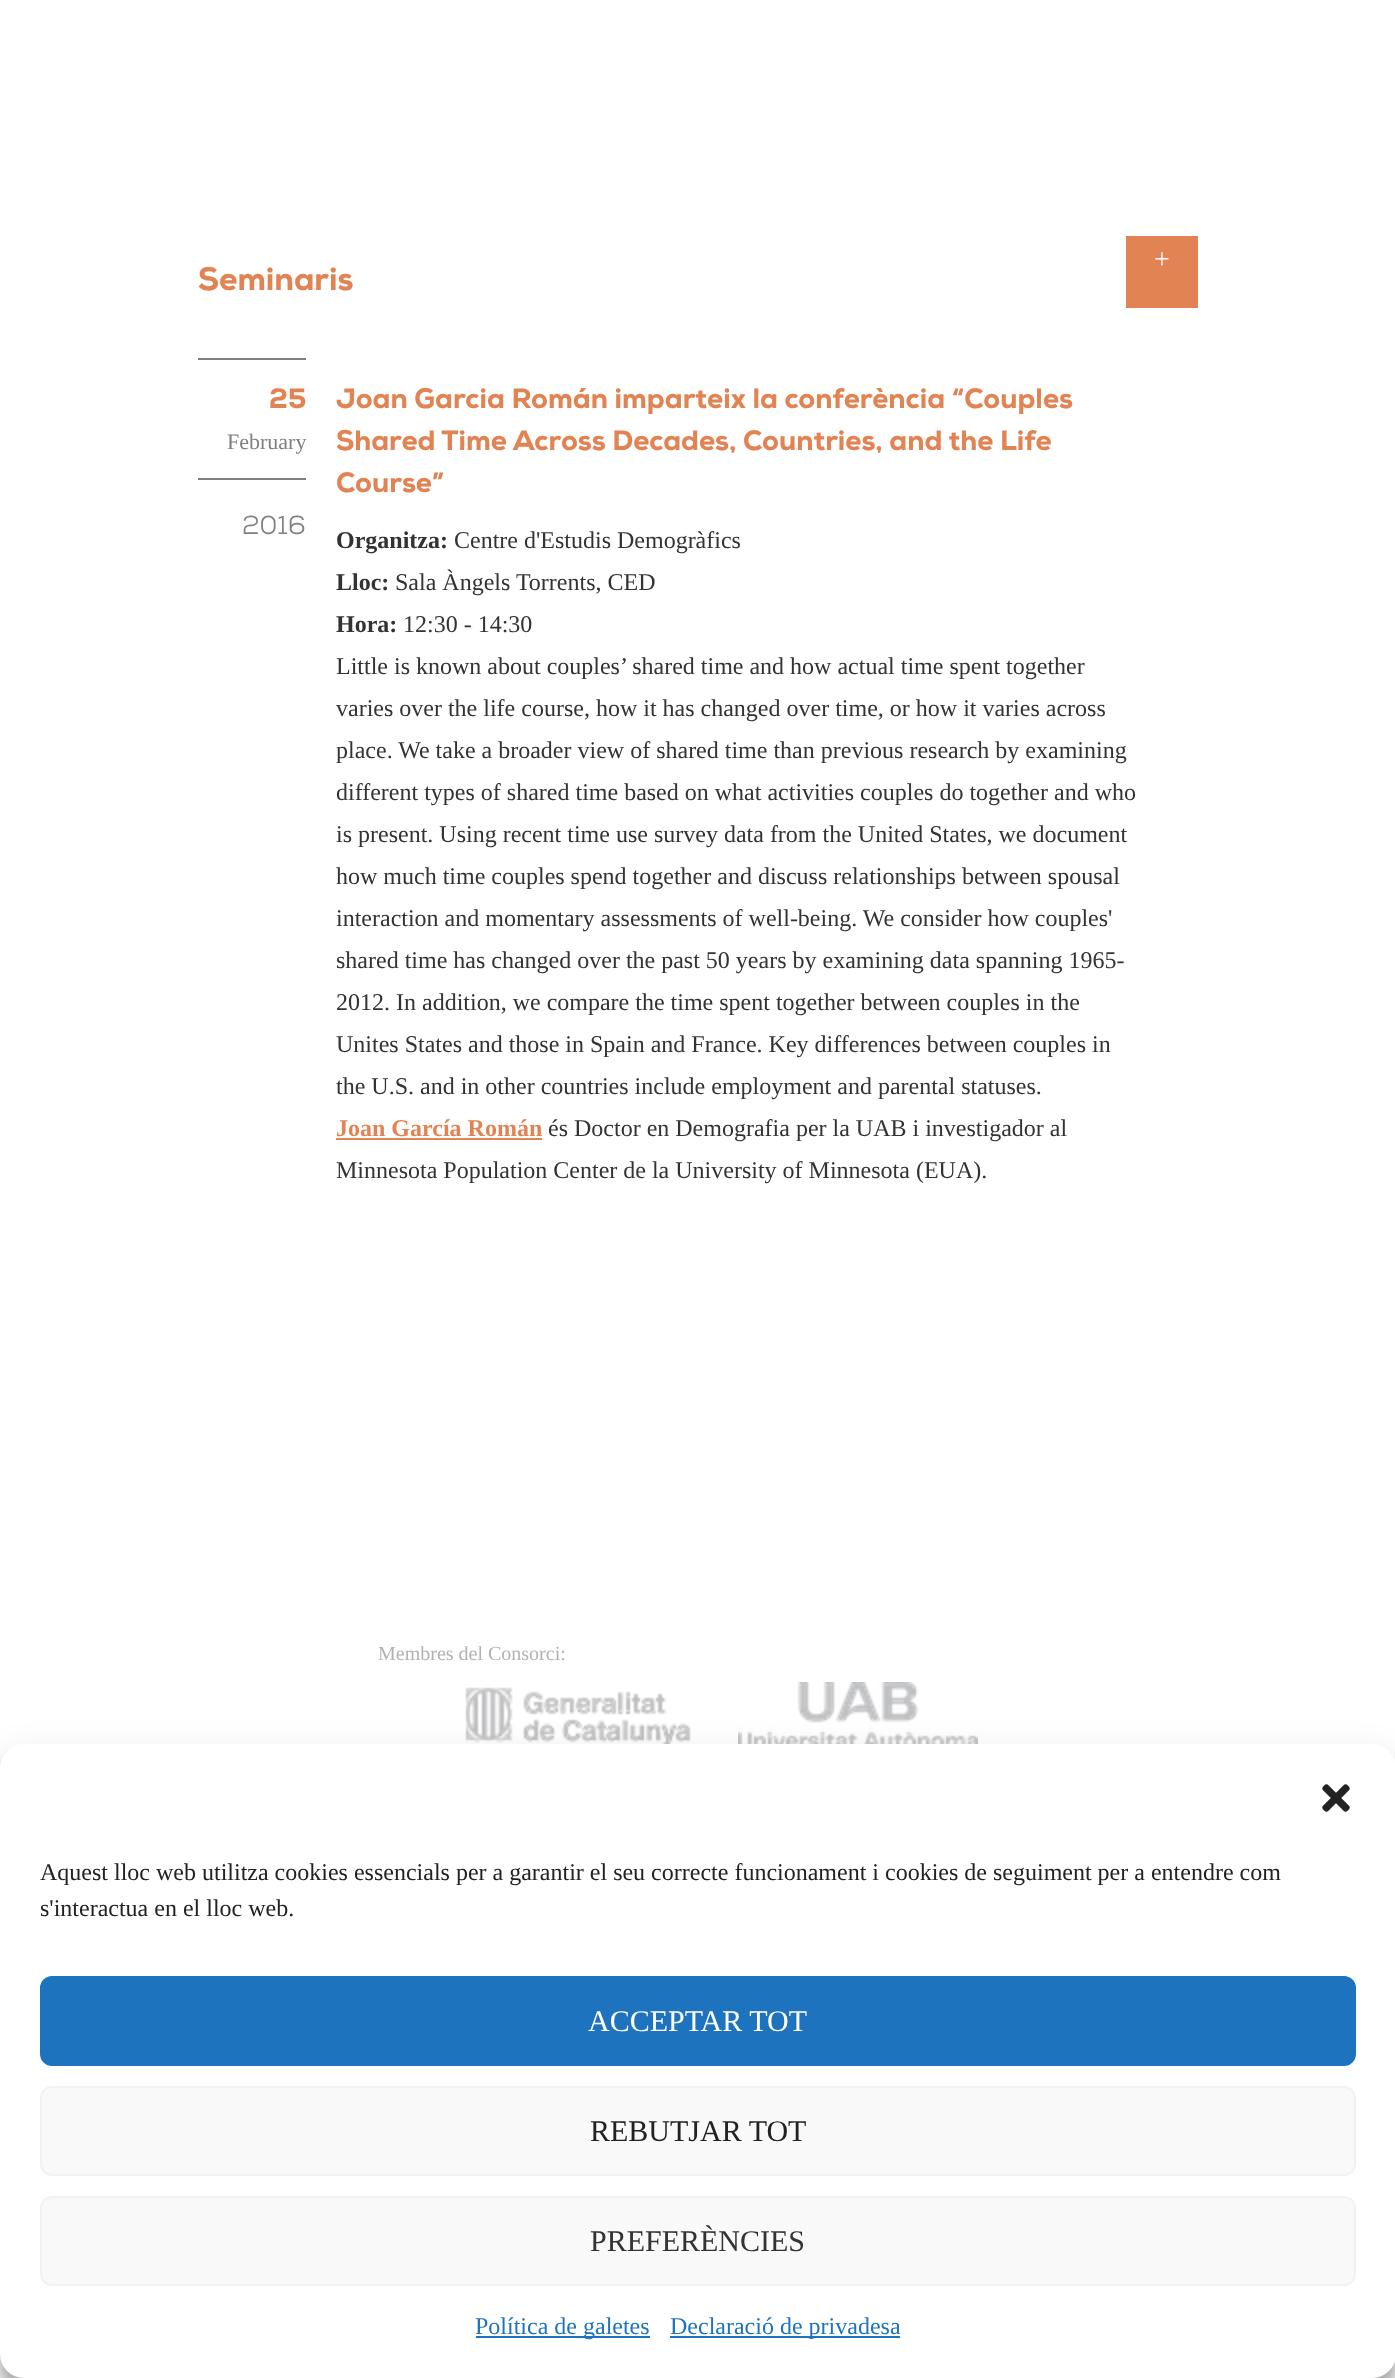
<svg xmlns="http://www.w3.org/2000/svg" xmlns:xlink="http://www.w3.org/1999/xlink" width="1395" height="2378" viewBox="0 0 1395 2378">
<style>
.cls-1{font:28px Liberation Serif;fill:#ffffff}
.cls-2{font:900 32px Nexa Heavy;fill:#e18353}
.cls-3{font:900 28px Nexa Heavy;fill:#e18353}
.cls-4{font:22px Liberation Serif;fill:#808080}
.cls-5{font:26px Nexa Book;fill:#808080}
.cls-6{font:bold 24px Liberation Serif;fill:#333333}
.cls-7{font:24px Liberation Serif;fill:#333333}
.cls-8{font:bold 24px Liberation Serif;fill:#e18353}
.cls-9{font:20px Liberation Serif;fill:#b2b2b2}
.cls-10{font:24px Liberation Serif;fill:#222222}
.cls-11{font:30px Liberation Serif;fill:#ffffff}
.cls-12{font:30px Liberation Serif;fill:#222222}
.cls-13{font:30px Liberation Serif;fill:#333333}
.cls-14{font:24px Liberation Serif;fill:#1e73be}
</style>
<rect width="100%" height="100%" fill="#ffffff"/>
<rect fill="#e18353" x="1126" y="236" width="72" height="72"/>
<rect fill="#808080" x="198" y="358" width="108" height="2"/>
<rect fill="#808080" x="198" y="478" width="108" height="2"/>
<rect fill="#e18353" x="336" y="1138" width="206" height="2"/>
<image xlink:href="image0.png" x="465" y="1687" width="226" height="57"/>
<image xlink:href="image1.png" x="738" y="1682" width="240" height="62"/>
<rect fill="#000000" fill-opacity="0.23" filter="blur(6px)" x="0" y="1756" width="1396" height="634" rx="24"/>
<rect fill="#000000" fill-opacity="0.19" filter="blur(20px)" x="0" y="1764" width="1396" height="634" rx="24"/>
<rect fill="#ffffff" x="0" y="1744" width="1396" height="634" rx="24"/>
<image xlink:href="image2.png" x="1322" y="1784" width="28" height="28"/>
<rect fill="#1e73be" stroke="#1e73be" stroke-width="2" x="41" y="1977" width="1314" height="88" rx="11"/>
<rect fill="#f9f9f9" stroke="#f2f2f2" stroke-width="2" x="41" y="2087" width="1314" height="88" rx="11"/>
<rect fill="#f9f9f9" stroke="#f2f2f2" stroke-width="2" x="41" y="2197" width="1314" height="88" rx="11"/>
<rect fill="#1e73be" x="476" y="2336" width="174" height="2"/>
<rect fill="#1e73be" x="670" y="2336" width="230" height="2"/>
<text class="cls-1" x="1154" y="268">+</text>
<text class="cls-2" x="198" y="290">Seminaris</text>
<text class="cls-3" x="269" y="408">25</text>
<text class="cls-4" x="227" y="449">February</text>
<text class="cls-5" x="242" y="534">2016</text>
<text class="cls-3"><tspan x="336" y="408">Joan Garcia Román imparteix la conferència “Couples</tspan><tspan x="336" y="450">Shared Time Across Decades, Countries, and the Life</tspan><tspan x="336" y="492">Course”</tspan></text>
<text class="cls-6" x="336" y="548">Organitza:</text>
<text class="cls-7" x="454" y="548">Centre d'Estudis Demogràfics</text>
<text class="cls-6" x="336" y="590">Lloc:</text>
<text class="cls-7" x="395" y="590">Sala Àngels Torrents, CED</text>
<text class="cls-6" x="336" y="632">Hora:</text>
<text class="cls-7" x="403" y="632">12:30 - 14:30</text>
<text class="cls-7"><tspan x="336" y="674">Little is known about couples’ shared time and how actual time spent together</tspan><tspan x="336" y="716">varies over the life course, how it has changed over time, or how it varies across</tspan><tspan x="336" y="758">place. We take a broader view of shared time than previous research by examining</tspan><tspan x="336" y="800">different types of shared time based on what activities couples do together and who</tspan><tspan x="336" y="842">is present. Using recent time use survey data from the United States, we document</tspan><tspan x="336" y="884">how much time couples spend together and discuss relationships between spousal</tspan><tspan x="336" y="926">interaction and momentary assessments of well-being. We consider how couples'</tspan><tspan x="336" y="968">shared time has changed over the past 50 years by examining data spanning 1965-</tspan><tspan x="336" y="1010">2012. In addition, we compare the time spent together between couples in the</tspan><tspan x="336" y="1052">Unites States and those in Spain and France. Key differences between couples in</tspan><tspan x="336" y="1094">the U.S. and in other countries include employment and parental statuses.</tspan></text>
<text class="cls-8" x="336" y="1136">Joan García Román</text>
<text class="cls-7" x="548" y="1136">és Doctor en Demografia per la UAB i investigador al</text>
<text class="cls-7" x="336" y="1178">Minnesota Population Center de la University of Minnesota (EUA).</text>
<text class="cls-9" x="378" y="1660">Membres del Consorci:</text>
<text class="cls-10"><tspan x="40" y="1880">Aquest lloc web utilitza cookies essencials per a garantir el seu correcte funcionament i cookies de seguiment per a entendre com</tspan><tspan x="40" y="1916">s'interactua en el lloc web.</tspan></text>
<text class="cls-11" x="588" y="2031">ACCEPTAR TOT</text>
<text class="cls-12" x="590" y="2141">REBUTJAR TOT</text>
<text class="cls-13" x="590" y="2251">PREFERÈNCIES</text>
<text class="cls-14" x="475" y="2334">Política de galetes</text>
<text class="cls-14" x="670" y="2334">Declaració de privadesa</text>
</svg>
